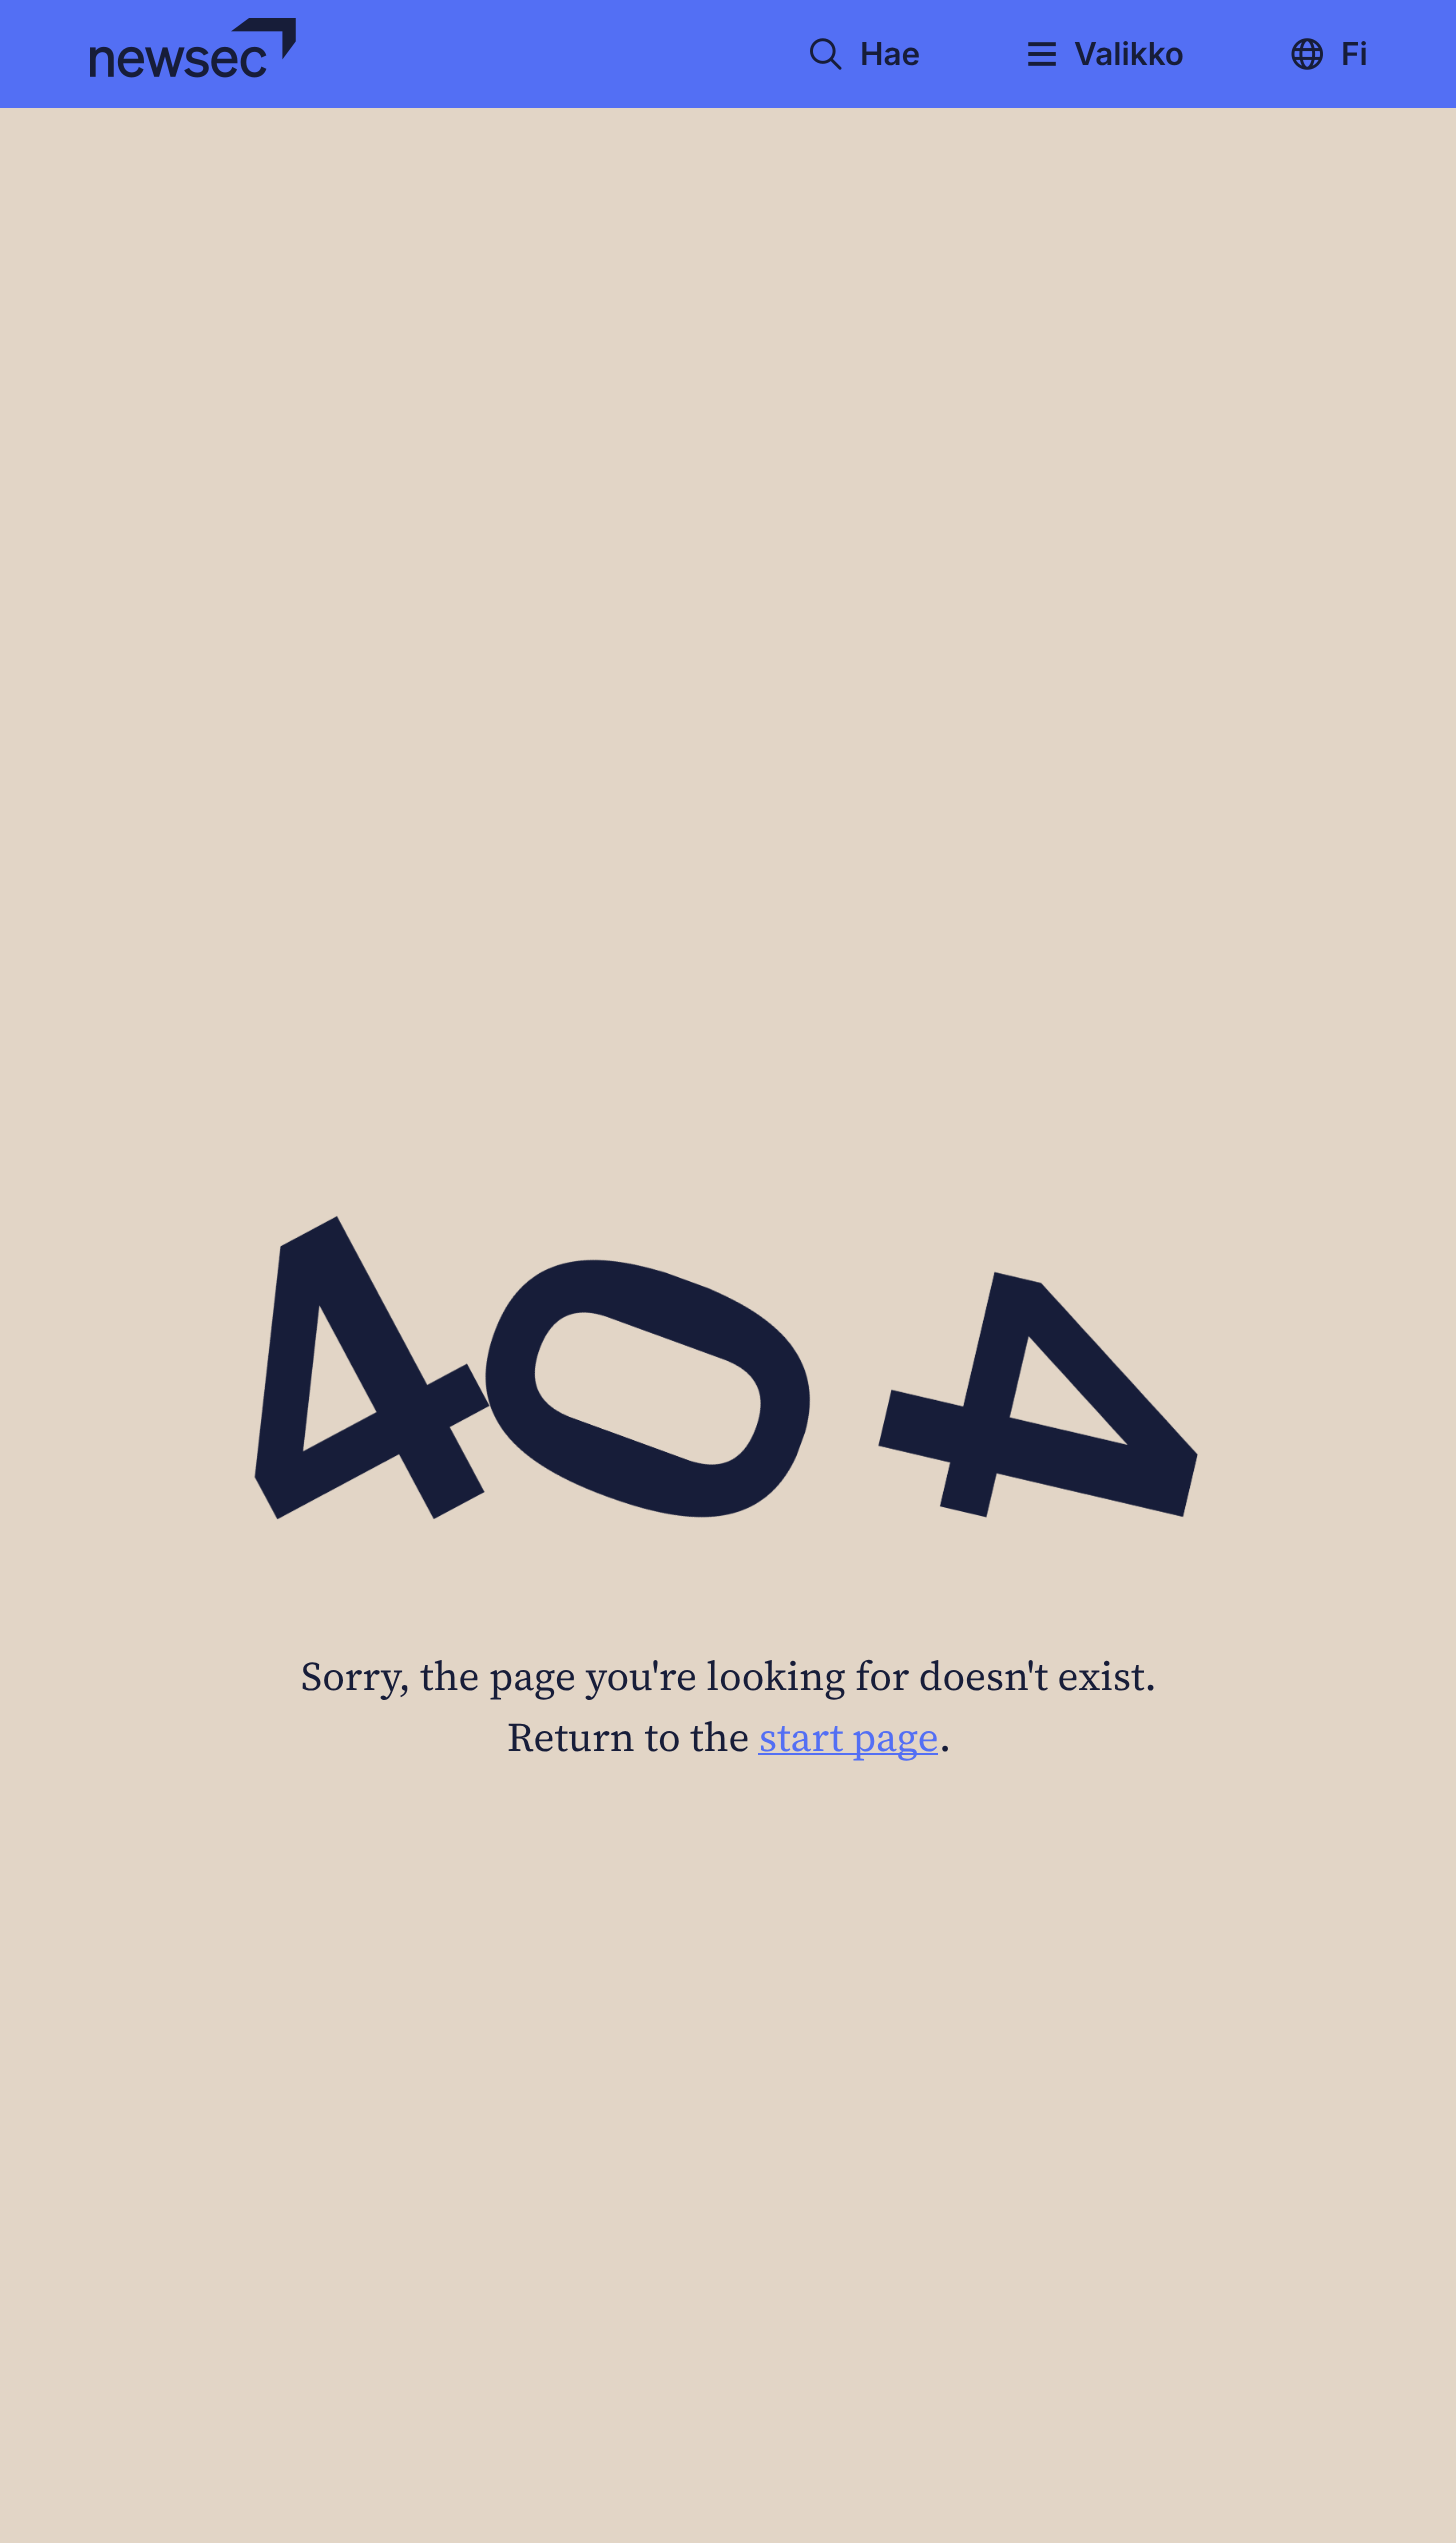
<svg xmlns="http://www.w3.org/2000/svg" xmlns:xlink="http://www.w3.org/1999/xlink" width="1456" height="2543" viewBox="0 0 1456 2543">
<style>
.cls-1{font:600 31.5px Inter;fill:#171d39}
.cls-2{font:40.5px 'Source Serif 4';fill:#171d39}
.cls-3{font:40.5px 'Source Serif 4';fill:#536ff4}
</style>
<rect width="100%" height="100%" fill="#536ff4"/>
<image xlink:href="image0.png" x="90" y="18" width="206" height="60"/>
<image xlink:href="image1.png" x="810" y="38" width="32" height="32"/>
<image xlink:href="image2.png" x="1028" y="42" width="28" height="24"/>
<image xlink:href="image3.png" x="1291" y="38" width="32" height="32"/>
<rect fill="#e2d5c6" x="0" y="108" width="1456" height="2435"/>
<image xlink:href="image4.png" x="254" y="1215" width="944" height="305"/>
<rect fill="#536ff4" x="758" y="1753" width="180" height="2"/>
<text class="cls-1" x="860" y="65">Hae</text>
<text class="cls-1" x="1074" y="65">Valikko</text>
<text class="cls-1" x="1341" y="65">Fi</text>
<text class="cls-2" x="301" y="1690">Sorry, the page you're looking for doesn't exist.</text>
<text class="cls-2" x="507" y="1751">Return to the</text>
<text class="cls-3" x="759" y="1751" word-spacing="-1">start page</text>
<text class="cls-2" x="939" y="1751">.</text>
</svg>
